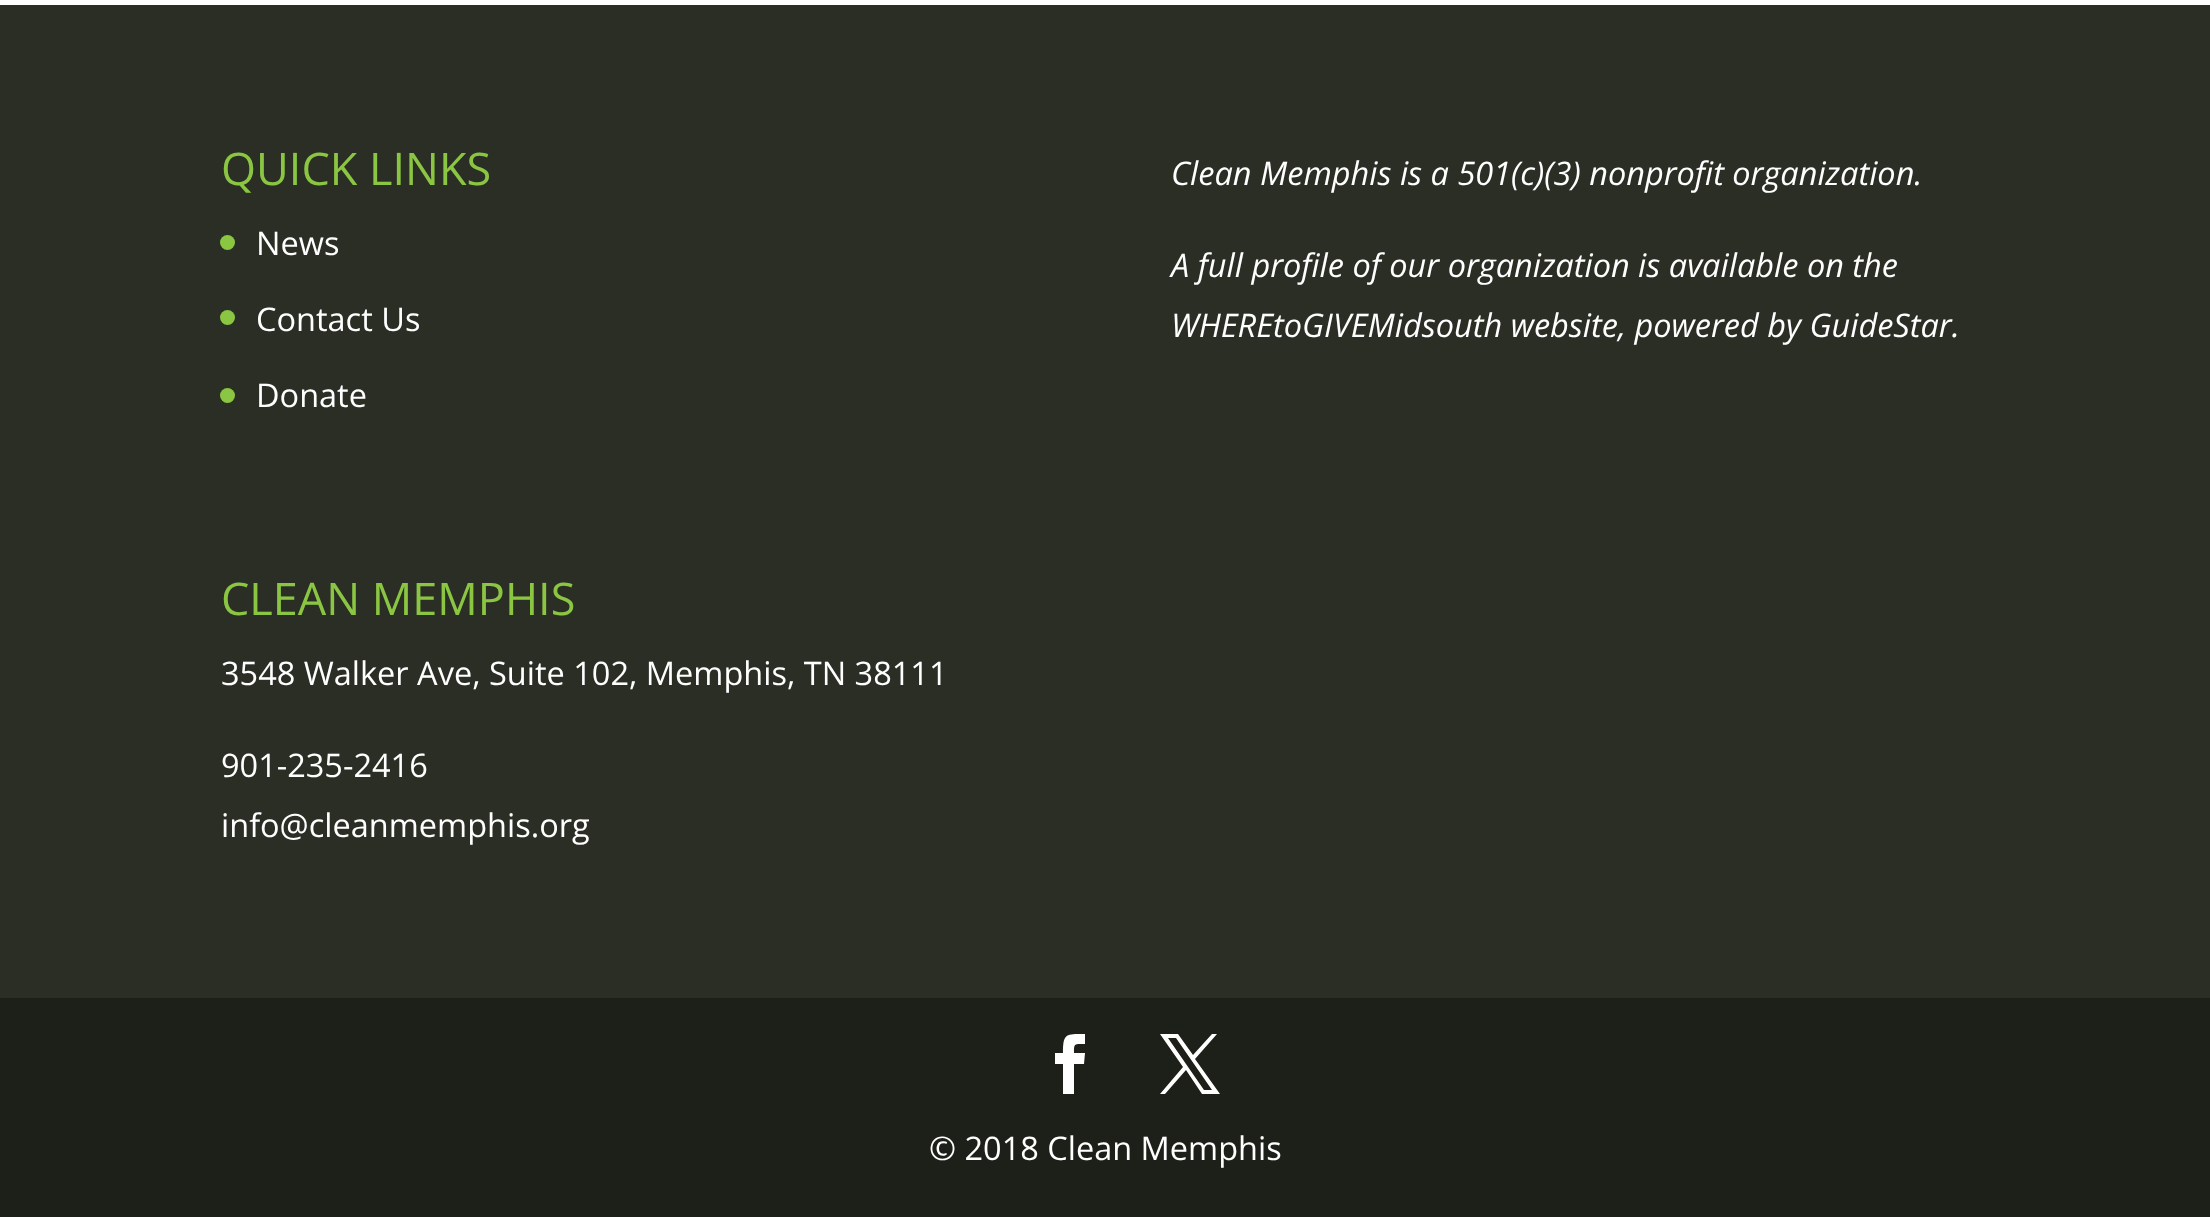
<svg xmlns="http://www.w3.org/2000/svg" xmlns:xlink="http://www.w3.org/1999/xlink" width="2210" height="1217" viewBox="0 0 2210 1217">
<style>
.cls-1{font:45px Open Sans;fill:#8bc643}
.cls-2{font:32.5px Open Sans;fill:#ffffff}
.cls-3{font:italic 32.5px Open Sans;fill:#ffffff}
</style>
<rect width="100%" height="100%" fill="#ffffff"/>
<rect fill="#2a2e25" x="0" y="5" width="2210" height="993"/>
<circle fill="#8bc643" cx="227.5" cy="242.5" r="7.5"/>
<circle fill="#8bc643" cx="227.5" cy="317.5" r="7.5"/>
<circle fill="#8bc643" cx="227.5" cy="395.5" r="7.5"/>
<rect fill="#1d1f19" x="0" y="998" width="2210" height="219"/>
<path fill="#ffffff" d="M1063 1094H1074V1064H1084L1085 1053H1074C1074 1043 1074 1044 1085 1044V1034C1066 1034 1063 1033 1063 1053H1055V1064H1063Z"/>
<path fill="#ffffff" d="M1160 1034L1183 1067L1160 1094H1165L1186 1070L1202 1094H1220L1195 1059L1217 1034H1212L1193 1055L1178 1034ZM1168 1038H1176L1212 1090H1204Z"/>
<text class="cls-1" x="221" y="185">QUICK LINKS</text>
<text class="cls-2" x="256" y="255">News</text>
<text class="cls-2" x="256" y="331">Contact Us</text>
<text class="cls-2" x="256" y="407">Donate</text>
<text class="cls-3" x="1171" y="185">Clean Memphis is a 501(c)(3) nonprofit organization.</text>
<text class="cls-3"><tspan x="1171" y="277">A full profile of our organization is available on the</tspan><tspan x="1171" y="337">WHEREtoGIVEMidsouth website, powered by GuideStar.</tspan></text>
<text class="cls-1" x="221" y="615">CLEAN MEMPHIS</text>
<text class="cls-2" x="221" y="685">3548 Walker Ave, Suite 102, Memphis, TN 38111</text>
<text class="cls-2"><tspan x="221" y="777">901-235-2416</tspan><tspan x="221" y="837">info@cleanmemphis.org</tspan></text>
<text class="cls-2" x="929" y="1160">© 2018 Clean Memphis</text>
</svg>
